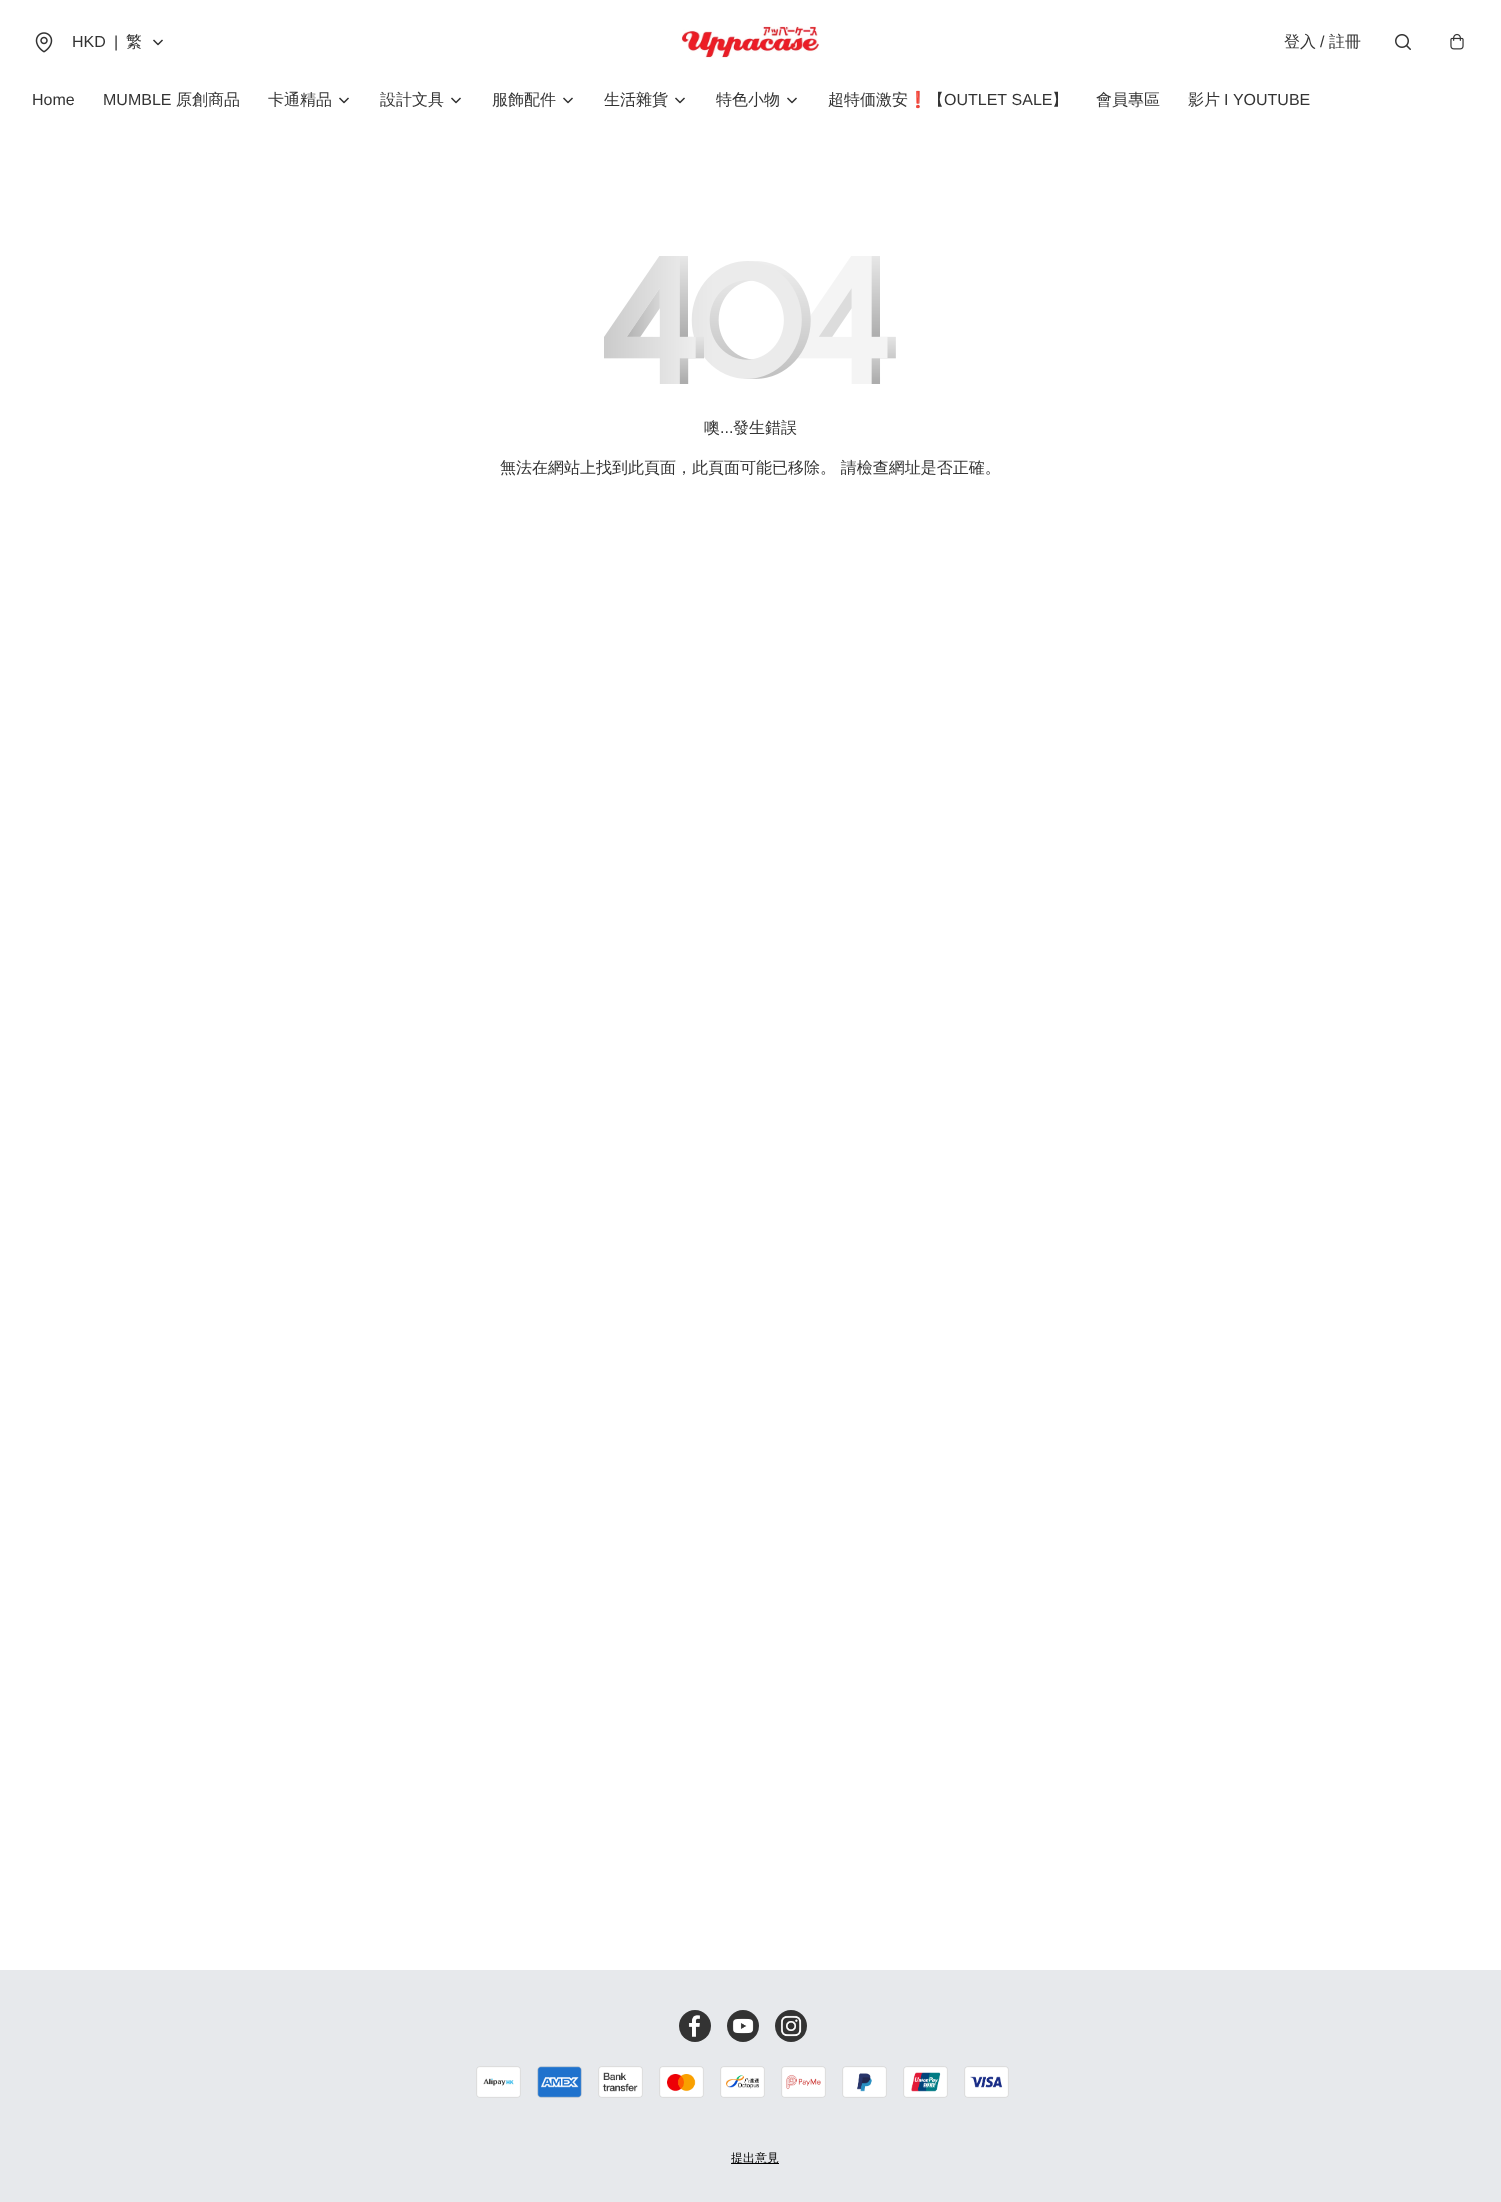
<svg xmlns="http://www.w3.org/2000/svg" xmlns:xlink="http://www.w3.org/1999/xlink" width="1501" height="2202" viewBox="0 0 1501 2202">
<style>*{font-kerning:none!important;font-variant-ligatures:none!important}</style>
<style>
.cls-1{font:16px Liberation Sans;fill:#333333}
.cls-2{font:500 16px WenQuanYi Zen Hei;fill:#333333}
.cls-3{font:16px Noto Color Emoji;fill:#333333}
.cls-4{font:500 12px WenQuanYi Zen Hei;fill:#000000}
</style>
<rect width="100%" height="100%" fill="#ffffff"/>
<image xlink:href="image0.png" x="35" y="32" width="18" height="21"/>
<path fill="none" stroke="#333333" stroke-width="1.5" stroke-linecap="square" stroke-linejoin="round" d="M154 40.5L158 44.5L162 40.5"/>
<image xlink:href="image1.png" x="681" y="26" width="139" height="32"/>
<image xlink:href="image2.png" x="1395" y="34" width="16" height="16"/>
<image xlink:href="image3.png" x="1450" y="33" width="14" height="17"/>
<path fill="none" stroke="#333333" stroke-width="1.5" stroke-linecap="square" stroke-linejoin="round" d="M340 98.5L344 102.5L348 98.5"/>
<path fill="none" stroke="#333333" stroke-width="1.5" stroke-linecap="square" stroke-linejoin="round" d="M452 98.5L456 102.5L460 98.5"/>
<path fill="none" stroke="#333333" stroke-width="1.5" stroke-linecap="square" stroke-linejoin="round" d="M564 98.5L568 102.5L572 98.5"/>
<path fill="none" stroke="#333333" stroke-width="1.5" stroke-linecap="square" stroke-linejoin="round" d="M676 98.5L680 102.5L684 98.5"/>
<path fill="none" stroke="#333333" stroke-width="1.5" stroke-linecap="square" stroke-linejoin="round" d="M788 98.5L792 102.5L796 98.5"/>
<image xlink:href="image4.png" x="604" y="256" width="292" height="128"/>
<rect fill="#e7e9ec" x="0" y="1970" width="1501" height="232"/>
<circle fill="#333333" cx="695" cy="2026" r="16"/>
<image xlink:href="image5.png" x="688" y="2015" width="12" height="22"/>
<circle fill="#333333" cx="743" cy="2026" r="16"/>
<image xlink:href="image6.png" x="732" y="2018" width="22" height="16"/>
<circle fill="#333333" cx="791" cy="2026" r="16"/>
<image xlink:href="image7.png" x="780" y="2015" width="22" height="22"/>
<image xlink:href="image8.png" x="476" y="2066" width="45" height="32"/>
<image xlink:href="image9.png" x="537" y="2066" width="45" height="32"/>
<image xlink:href="image10.png" x="598" y="2066" width="45" height="32"/>
<image xlink:href="image11.png" x="659" y="2066" width="45" height="32"/>
<image xlink:href="image12.png" x="720" y="2066" width="45" height="32"/>
<image xlink:href="image13.png" x="781" y="2066" width="45" height="32"/>
<image xlink:href="image14.png" x="842" y="2066" width="45" height="32"/>
<image xlink:href="image15.png" x="903" y="2066" width="45" height="32"/>
<image xlink:href="image16.png" x="964" y="2066" width="45" height="32"/>
<rect fill="#000000" x="731" y="2163" width="48" height="1"/>
<text class="cls-1" x="72" y="47">HKD</text>
<text class="cls-1" x="114" y="47">|</text>
<text class="cls-2" x="126" y="47">繁</text>
<text class="cls-2" x="1284" y="47">登入</text>
<text class="cls-1" x="1320" y="47">/</text>
<text class="cls-2" x="1329" y="47">註冊</text>
<text class="cls-1" x="32" y="105">Home</text>
<text class="cls-1" x="103" y="105">MUMBLE</text>
<text class="cls-2" x="176" y="105">原創商品</text>
<text class="cls-2" x="268" y="105">卡通精品</text>
<text class="cls-2" x="380" y="105">設計文具</text>
<text class="cls-2" x="492" y="105">服飾配件</text>
<text class="cls-2" x="604" y="105">生活雜貨</text>
<text class="cls-2" x="716" y="105">特色小物</text>
<text class="cls-2" x="828" y="105">超特価激安</text>
<text class="cls-3" x="908" y="105">❗</text>
<text class="cls-2" x="928" y="105">【</text>
<text class="cls-1" x="944" y="105">OUTLET SALE</text>
<text class="cls-2" x="1052" y="105">】</text>
<text class="cls-2" x="1096" y="105">會員專區</text>
<text class="cls-2" x="1188" y="105">影片</text>
<text class="cls-1" x="1224" y="105">I YOUTUBE</text>
<text class="cls-2" x="704" y="433">噢</text>
<text class="cls-1" x="720" y="433">...</text>
<text class="cls-2" x="733" y="433">發生錯誤</text>
<text class="cls-2" x="500" y="473">無法在網站上找到此頁面，此頁面可能已移除。 請檢查網址是否正確。</text>
<text class="cls-4" x="731" y="2162">提出意見</text>
</svg>
